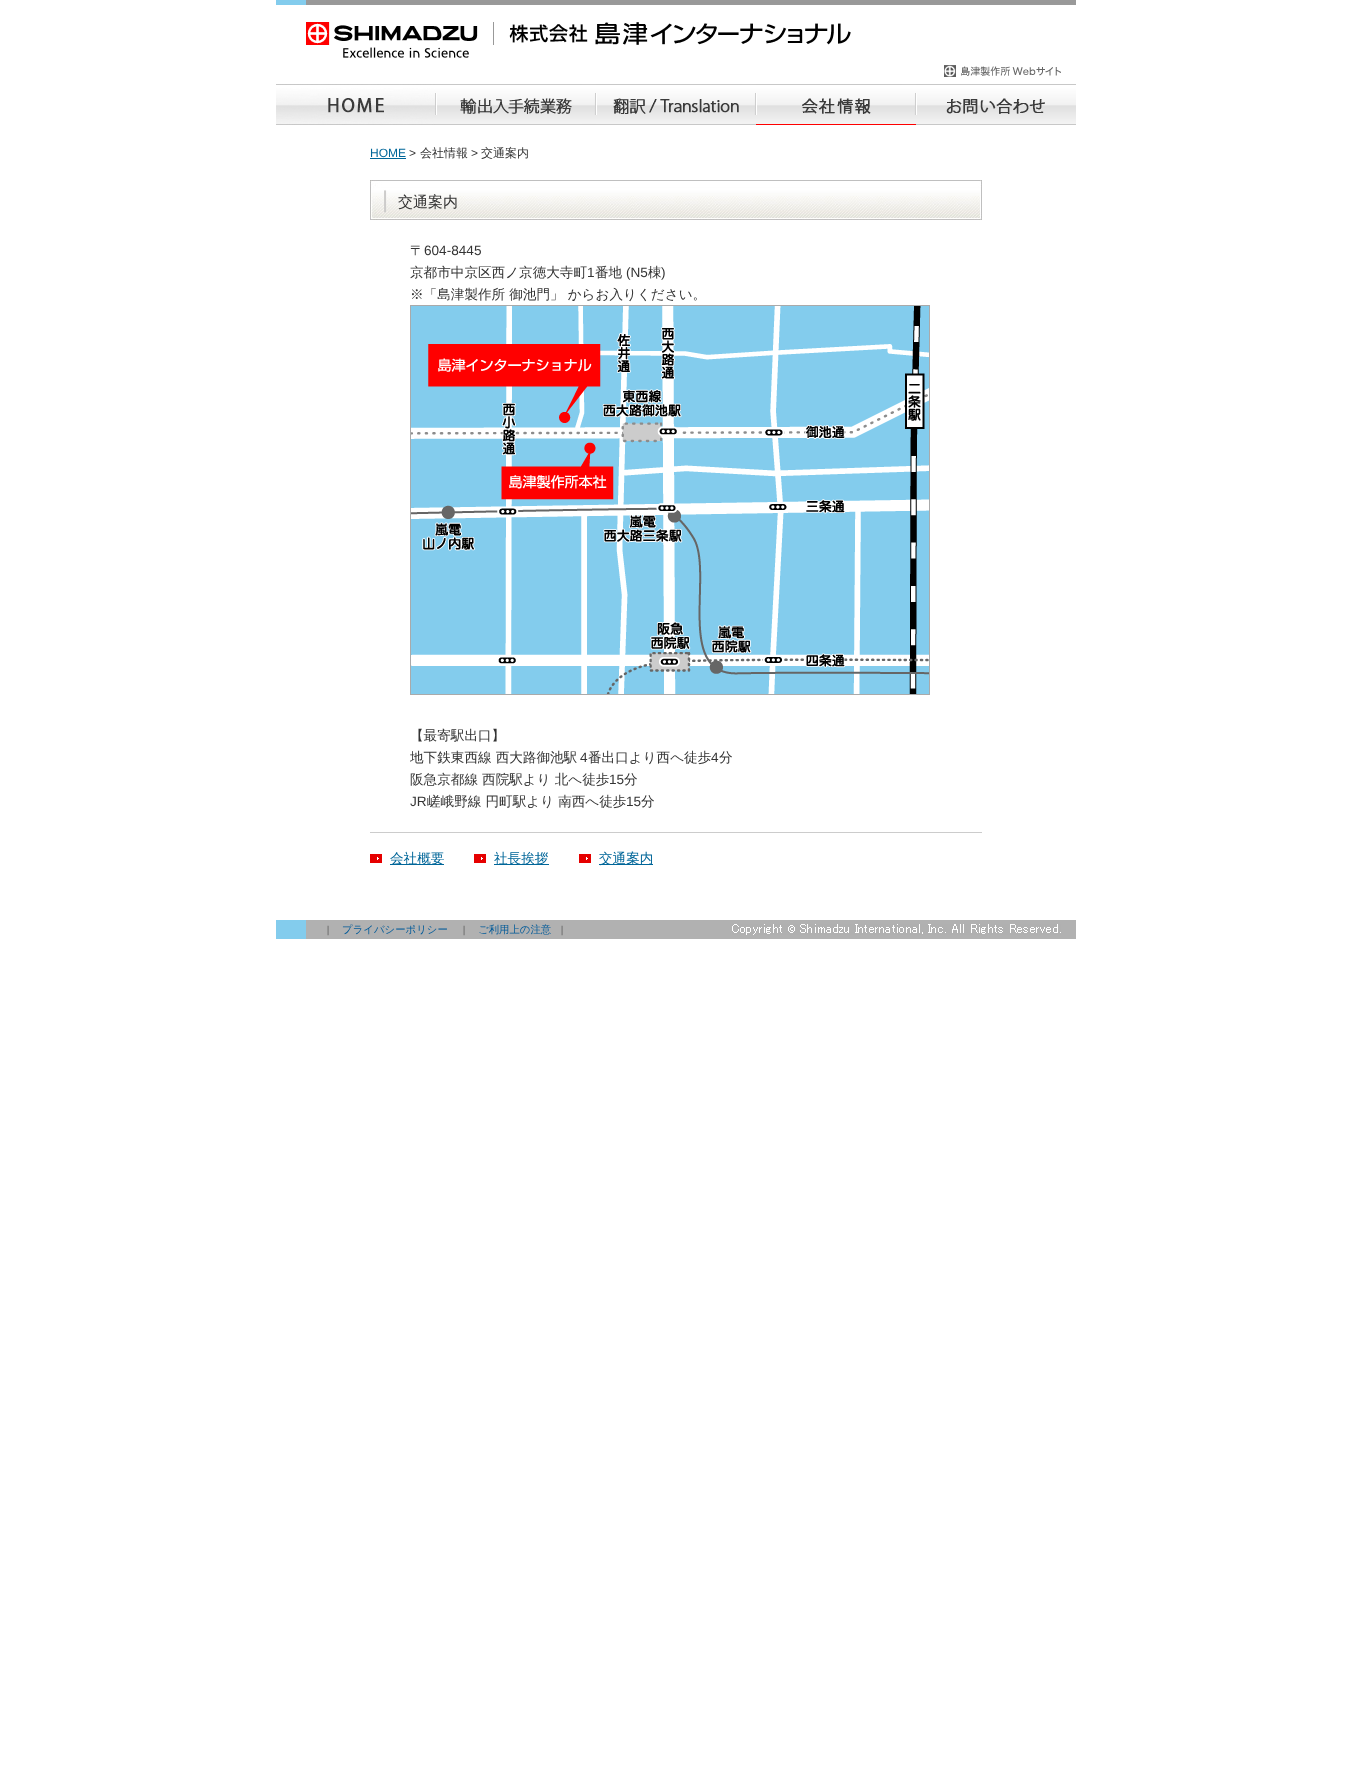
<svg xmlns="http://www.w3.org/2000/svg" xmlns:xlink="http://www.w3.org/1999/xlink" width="1352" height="1786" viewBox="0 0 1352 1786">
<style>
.cls-1{font:12px Liberation Sans;fill:#006699}
.cls-2{font:12px Liberation Sans;fill:#333333}
.cls-3{font:500 12px WenQuanYi Zen Hei;fill:#333333}
.cls-4{font:500 15px WenQuanYi Zen Hei;fill:#333333}
.cls-5{font:500 13.6px WenQuanYi Zen Hei;fill:#333333}
.cls-6{font:13.6px Liberation Sans;fill:#333333}
.cls-7{font:500 13.6px WenQuanYi Zen Hei;fill:#006699}
.cls-8{font:10.4px Liberation Serif;fill:#333333}
.cls-9{font:500 10.4px WenQuanYi Zen Hei;fill:#005a99}
</style>
<rect width="100%" height="100%" fill="#ffffff"/>
<image xlink:href="image0.png" x="276" y="0" width="800" height="5"/>
<image xlink:href="image1.png" x="306" y="22" width="545" height="36"/>
<image xlink:href="image2.png" x="944" y="65" width="117" height="12"/>
<image xlink:href="image3.png" x="276" y="84" width="160" height="41"/>
<image xlink:href="image4.png" x="436" y="84" width="160" height="41"/>
<image xlink:href="image5.png" x="596" y="84" width="160" height="41"/>
<image xlink:href="image6.png" x="756" y="84" width="160" height="41"/>
<image xlink:href="image7.png" x="916" y="84" width="160" height="41"/>
<rect fill="#006699" x="370" y="158" width="36" height="1"/>
<image xlink:href="image8.png" x="370" y="180" width="612" height="40"/>
<image xlink:href="image9.png" x="410" y="305" width="520" height="390"/>
<rect fill="#cccccc" x="370" y="832" width="612" height="1"/>
<image xlink:href="image10.png" x="370" y="854" width="12" height="9"/>
<rect fill="#006699" x="390" y="864" width="54" height="1"/>
<image xlink:href="image10.png" x="474" y="854" width="12" height="9"/>
<rect fill="#006699" x="494" y="864" width="55" height="1"/>
<image xlink:href="image10.png" x="579" y="854" width="12" height="9"/>
<rect fill="#006699" x="599" y="864" width="54" height="1"/>
<image xlink:href="image11.png" x="276" y="920" width="800" height="19"/>
<image xlink:href="image12.png" x="732" y="924" width="329" height="11"/>
<text class="cls-1" x="370" y="157">HOME</text>
<text class="cls-2" x="409" y="157">&gt;</text>
<text class="cls-3" x="420" y="157">会社情報</text>
<text class="cls-2" x="471" y="157">&gt;</text>
<text class="cls-3" x="481" y="157">交通案内</text>
<text class="cls-4" x="398" y="207">交通案内</text>
<text class="cls-5" x="410" y="255">〒</text>
<text class="cls-6" x="424" y="255">604-8445</text>
<text class="cls-5" x="410" y="277">京都市中京区西ノ京徳大寺町</text>
<text class="cls-6" x="587" y="277">1</text>
<text class="cls-5" x="595" y="277">番地</text>
<text class="cls-6" x="626" y="277">(N5</text>
<text class="cls-5" x="648" y="277">棟</text>
<text class="cls-6" x="661" y="277">)</text>
<text class="cls-5" x="410" y="299">※「島津製作所 御池門」 からお入りください。</text>
<text class="cls-5"><tspan x="410" y="740">【最寄駅出口】</tspan><tspan x="410" y="762">地下鉄東西線 西大路御池駅</tspan></text>
<text class="cls-6" x="580" y="762">4</text>
<text class="cls-5" x="588" y="762">番出口より西へ徒歩</text>
<text class="cls-6" x="711" y="762">4</text>
<text class="cls-5" x="719" y="762">分</text>
<text class="cls-5" x="410" y="784">阪急京都線 西院駅より 北へ徒歩</text>
<text class="cls-6" x="609" y="784">15</text>
<text class="cls-5" x="624" y="784">分</text>
<text class="cls-6" x="410" y="806">JR</text>
<text class="cls-5" x="427" y="806">嵯峨野線 円町駅より 南西へ徒歩</text>
<text class="cls-6" x="626" y="806">15</text>
<text class="cls-5" x="641" y="806">分</text>
<text class="cls-7" x="390" y="863">会社概要</text>
<text class="cls-7" x="494" y="863">社長挨拶</text>
<text class="cls-7" x="599" y="863">交通案内</text>
<text class="cls-8" x="327" y="933">|</text>
<text class="cls-9" x="342" y="933">プライバシーポリシー</text>
<text class="cls-8" x="463" y="933">|</text>
<text class="cls-9" x="478" y="933">ご利用上の注意</text>
<text class="cls-8" x="561" y="933">|</text>
</svg>
